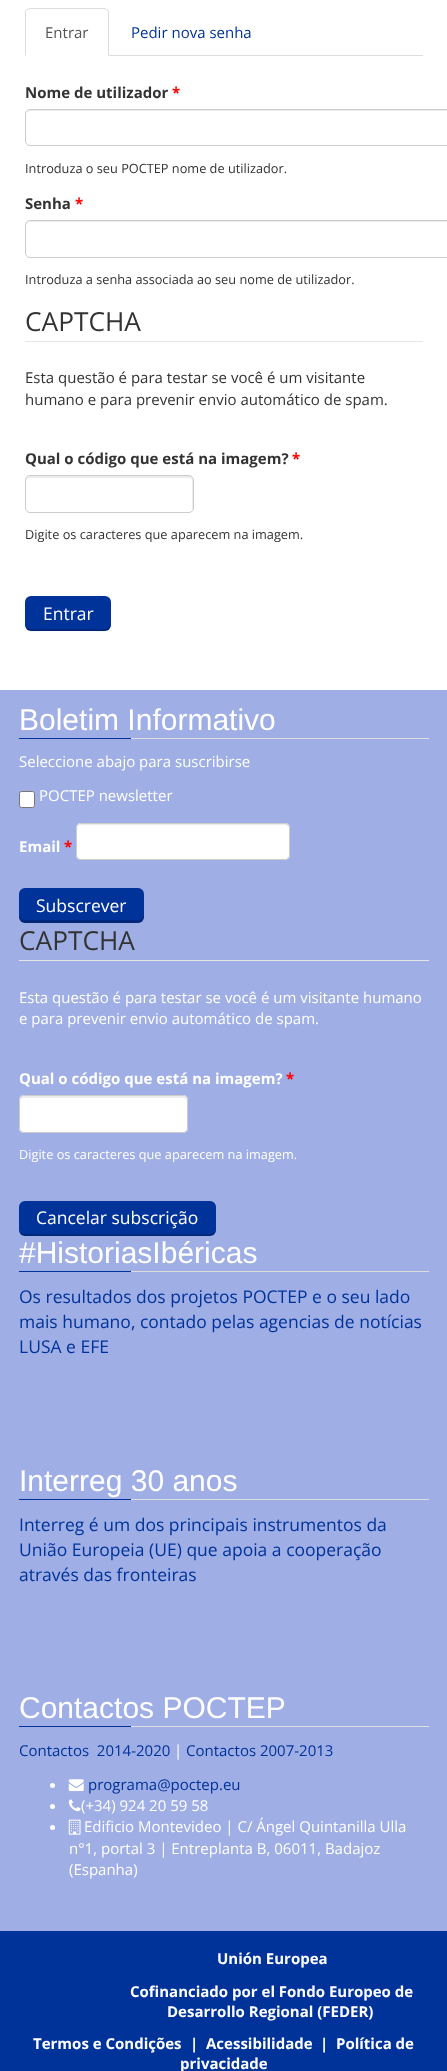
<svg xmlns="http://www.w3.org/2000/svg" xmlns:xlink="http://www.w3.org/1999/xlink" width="447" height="2071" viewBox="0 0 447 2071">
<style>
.cls-1{font:15px Open Sans;fill:#555555}
.cls-2{font:15px Open Sans;fill:#003399}
.cls-3{font:bold 15px Open Sans;fill:#333333}
.cls-4{font:bold 15px Open Sans;fill:#ff0000}
.cls-5{font:12.75px Open Sans;fill:#333333}
.cls-6{font:26.25px Open Sans;fill:#333333}
.cls-7{font:15px Open Sans;fill:#333333}
.cls-8{font:17.5px Open Sans;fill:#ffffff}
.cls-9{font:30px Liberation Sans;fill:#ffffff}
.cls-10{font:15px Open Sans;fill:#ffffff}
.cls-11{font:bold 15px Open Sans;fill:#ffffff}
.cls-12{font:12.75px Open Sans;fill:#ffffff}
.cls-13{font:17.5px Open Sans;fill:#003399}
</style>
<rect width="100%" height="100%" fill="#ffffff"/>
<rect fill="#dddddd" x="109" y="55" width="314" height="1"/>
<path fill="#dddddd" d="M30 8L27 9V10L30 9H104L107 10V9L104 8Z"/>
<path fill="#dddddd" d="M107 9L109 11V56L108 55V11L107 10Z"/>
<path fill="#dddddd" d="M25 12V56L26 55V11L27 10V9C26 10 25 11 25 12Z"/>
<path fill="#ececec" d="M30 111H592C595 111 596 113 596 115C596 112 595 110 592 110H30C27 110 26 112 26 115C26 113 28 111 30 111Z"/>
<rect fill="none" stroke="#cccccc" x="25.5" y="109.5" width="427" height="36" rx="4.5"/>
<path fill="#ececec" d="M30 222H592C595 222 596 224 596 226C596 223 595 221 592 221H30C27 221 26 223 26 226C26 224 28 222 30 222Z"/>
<rect fill="none" stroke="#cccccc" x="25.5" y="220.5" width="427" height="37" rx="4.5"/>
<rect fill="#e5e5e5" x="25" y="341" width="398" height="1"/>
<path fill="#ececec" d="M30 478H189C191 478 192 479 192 481V510C193 509 193 508 193 507V480C193 478 191 476 189 476H30C28 476 26 478 26 480V481C26 479 28 478 30 478Z"/>
<rect fill="none" stroke="#cccccc" x="25.5" y="475.5" width="168" height="37" rx="4.5"/>
<rect fill="#003399" x="25" y="596" width="86" height="35" rx="6"/>
<path fill="#000000" fill-opacity="0.2" d="M25 622C25 634 33 631 43 631H93C103 631 111 634 111 622C111 626 108 629 105 629H31C28 629 25 626 25 622Z"/>
<rect fill="#9faee5" x="0" y="690" width="447" height="1241"/>
<rect fill="#dddddd" x="131" y="738" width="298" height="1"/>
<rect fill="#003399" x="19" y="738" width="112" height="1"/>
<rect fill="#ffffff" stroke="#767676" x="19.5" y="791.5" width="15" height="16" rx="2"/>
<rect fill="#ffffff" x="76" y="823" width="214" height="37" rx="5"/>
<path fill="#ececec" d="M81 825H285C287 825 289 827 289 829V828C289 826 287 824 285 824H82C80 824 78 826 78 828V829C78 827 79 825 81 825Z"/>
<rect fill="none" stroke="#cccccc" x="76.5" y="823.5" width="213" height="36" rx="4.5"/>
<rect fill="#003399" x="19" y="888" width="125" height="35" rx="6"/>
<path fill="#000000" fill-opacity="0.2" d="M19 914V917C19 920 22 923 25 923H138C141 923 144 920 144 917V914C144 917 141 920 138 920H25C22 920 19 917 19 914Z"/>
<rect fill="#e5e5e5" x="19" y="960" width="410" height="1"/>
<rect fill="#ffffff" x="19" y="1095" width="169" height="38" rx="5"/>
<path fill="#ececec" d="M24 1098H183L185 1099L186 1101V1100C186 1098 184 1096 182 1096H24C22 1096 20 1098 20 1100V1101C20 1099 22 1098 24 1098Z"/>
<rect fill="none" stroke="#cccccc" x="19.5" y="1095.5" width="168" height="37" rx="4.5"/>
<rect fill="#003399" x="19" y="1201" width="197" height="35" rx="6"/>
<path fill="#000000" fill-opacity="0.2" d="M19 1228V1230C19 1233 22 1236 25 1236H210C213 1236 216 1233 216 1230V1228C216 1231 213 1234 210 1234H25C22 1234 19 1231 19 1228Z"/>
<rect fill="#dddddd" x="131" y="1271" width="298" height="1"/>
<rect fill="#003399" x="19" y="1271" width="112" height="1"/>
<rect fill="#dddddd" x="131" y="1499" width="298" height="1"/>
<rect fill="#003399" x="19" y="1499" width="112" height="1"/>
<rect fill="#dddddd" x="131" y="1726" width="298" height="1"/>
<rect fill="#003399" x="19" y="1726" width="112" height="1"/>
<circle fill="#ffffff" cx="52.5" cy="1785.5" r="2.5"/>
<image xlink:href="image0.png" x="68" y="1779" width="16" height="13"/>
<circle fill="#ffffff" cx="52.5" cy="1806.5" r="2.5"/>
<image xlink:href="image1.png" x="68" y="1799" width="13" height="13"/>
<circle fill="#ffffff" cx="52.5" cy="1827.5" r="2.5"/>
<image xlink:href="image2.png" x="68" y="1819" width="13" height="16"/>
<rect fill="#003399" x="0" y="1931" width="447" height="140"/>
<text class="cls-1" x="45" y="38">Entrar</text>
<text class="cls-2" x="131" y="38">Pedir nova senha</text>
<text class="cls-3" x="25" y="98">Nome de utilizador</text>
<text class="cls-4" x="172" y="98">*</text>
<text class="cls-5" x="25" y="173">Introduza o seu POCTEP nome de utilizador.</text>
<text class="cls-3" x="25" y="209">Senha</text>
<text class="cls-4" x="75" y="209">*</text>
<text class="cls-5" x="25" y="284">Introduza a senha associada ao seu nome de utilizador.</text>
<text class="cls-6" x="25" y="331">CAPTCHA</text>
<text class="cls-7"><tspan x="25" y="383">Esta questão é para testar se você é um visitante</tspan><tspan x="25" y="405">humano e para prevenir envio automático de spam.</tspan></text>
<text class="cls-3" x="25" y="464">Qual o código que está na imagem?</text>
<text class="cls-4" x="292" y="464">*</text>
<text class="cls-5" x="25" y="539">Digite os caracteres que aparecem na imagem.</text>
<text class="cls-8" x="43" y="620">Entrar</text>
<text class="cls-9" x="19" y="730">Boletim Informativo</text>
<text class="cls-10" x="19" y="767">Seleccione abajo para suscribirse</text>
<text class="cls-10" x="39" y="801">POCTEP newsletter</text>
<text class="cls-11" x="19" y="852">Email</text>
<text class="cls-4" x="64" y="852">*</text>
<text class="cls-8" x="36" y="912">Subscrever</text>
<text class="cls-6" x="19" y="950">CAPTCHA</text>
<text class="cls-10"><tspan x="19" y="1003">Esta questão é para testar se você é um visitante humano</tspan><tspan x="19" y="1024">e para prevenir envio automático de spam.</tspan></text>
<text class="cls-11" x="19" y="1084">Qual o código que está na imagem?</text>
<text class="cls-4" x="286" y="1084">*</text>
<text class="cls-12" x="19" y="1159">Digite os caracteres que aparecem na imagem.</text>
<text class="cls-8" x="36" y="1224">Cancelar subscrição</text>
<text class="cls-9" x="19" y="1263">#HistoriasIbéricas</text>
<text class="cls-13"><tspan x="19" y="1303">Os resultados dos projetos POCTEP e o seu lado</tspan><tspan x="19" y="1328">mais humano, contado pelas agencias de notícias</tspan><tspan x="19" y="1353">LUSA e EFE</tspan></text>
<text class="cls-9" x="19" y="1491">Interreg 30 anos</text>
<text class="cls-13"><tspan x="19" y="1531">Interreg é um dos principais instrumentos da</tspan><tspan x="19" y="1556">União Europeia (UE) que apoia a cooperação</tspan><tspan x="19" y="1581">através das fronteiras</tspan></text>
<text class="cls-9" x="19" y="1718">Contactos POCTEP</text>
<text class="cls-2" xml:space="preserve" x="19" y="1756">Contactos  2014-2020</text>
<text class="cls-10" x="174" y="1756">|</text>
<text class="cls-2" x="186" y="1756">Contactos 2007-2013</text>
<text class="cls-2" x="88" y="1790">programa@poctep.eu</text>
<text class="cls-10" x="81" y="1811">(+34) 924 20 59 58</text>
<text class="cls-10" x="84" y="1832">Edificio Montevideo | C/ Ángel Quintanilla Ulla</text>
<text class="cls-10"><tspan x="69" y="1854">n°1, portal 3 | Entreplanta B, 06011, Badajoz</tspan><tspan x="69" y="1875">(Espanha)</tspan></text>
<text class="cls-11" x="217" y="1964">Unión Europea</text>
<text class="cls-11" x="130" y="1997">Cofinanciado por el Fondo Europeo de</text>
<text class="cls-11" x="167" y="2017">Desarrollo Regional (FEDER)</text>
<text class="cls-11" x="33" y="2049">Termos e Condições</text>
<text class="cls-11" x="190" y="2049">|</text>
<text class="cls-11" x="206" y="2049">Acessibilidade</text>
<text class="cls-11" x="320" y="2049">|</text>
<text class="cls-11" x="336" y="2049">Política de</text>
<text class="cls-11" x="180" y="2069">privacidade</text>
</svg>
